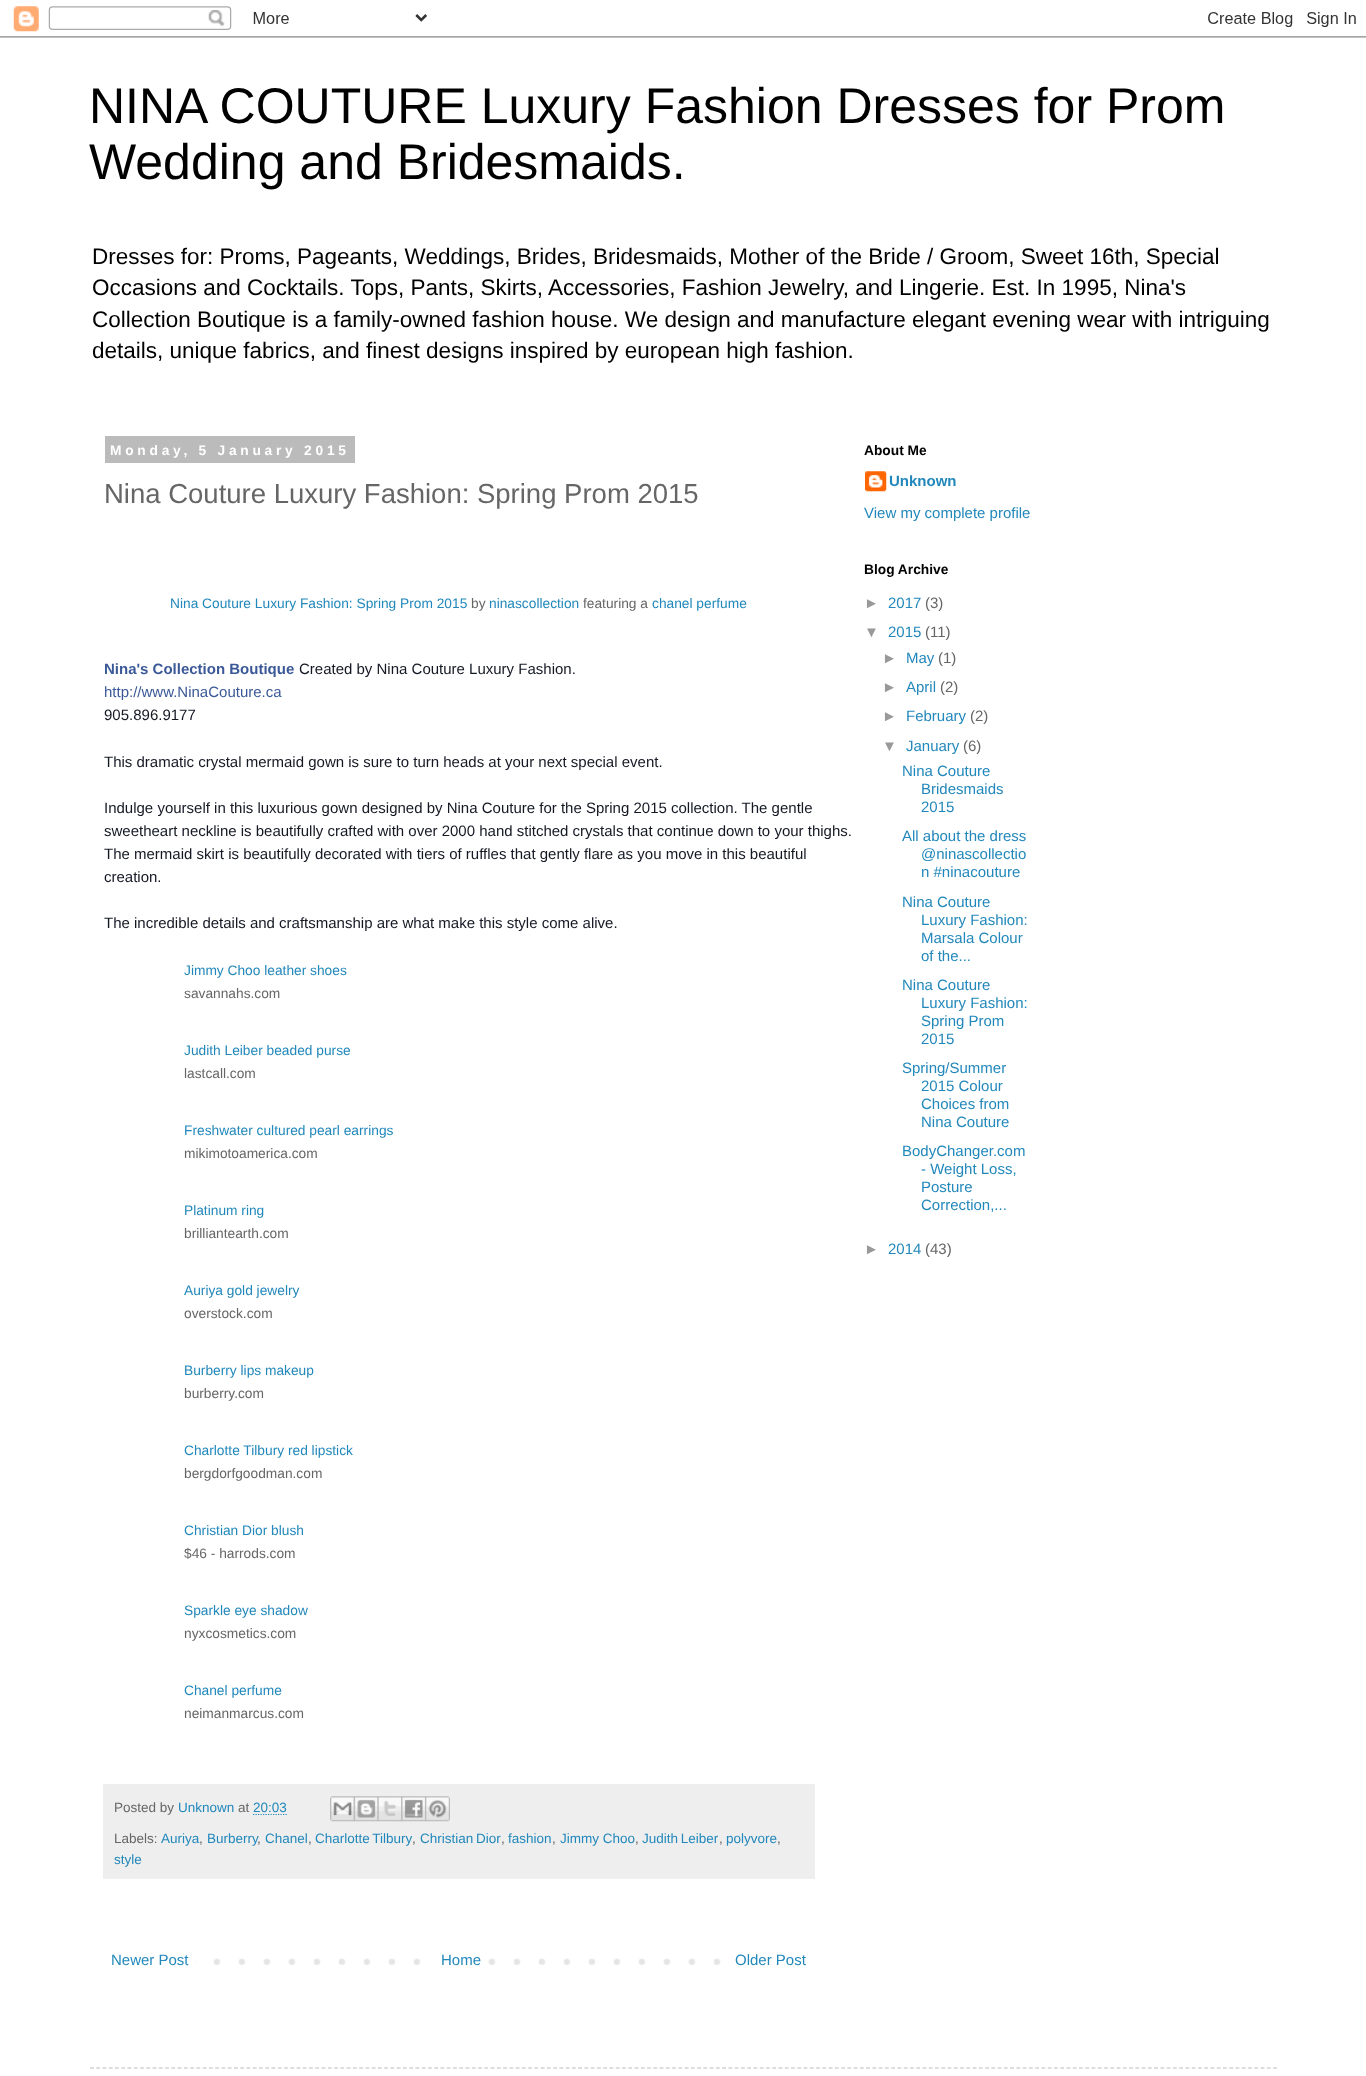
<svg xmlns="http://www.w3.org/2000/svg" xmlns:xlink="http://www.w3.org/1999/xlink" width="1366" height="2076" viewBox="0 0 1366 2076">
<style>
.cls-1{font:50px Liberation Sans;fill:#000000}
.cls-2{font:22.5px Liberation Sans;fill:#000000}
.cls-3{font:bold 13.75px Liberation Sans;letter-spacing:3.75px;fill:#ffffff}
.cls-4{font:27.5px Liberation Sans;fill:#666666}
.cls-5{font:13.75px Liberation Sans;fill:#2288bb}
.cls-6{font:13.75px Liberation Sans;fill:#666666}
.cls-7{font:bold 15px Liberation Sans;fill:#3b5998}
.cls-8{font:15px Liberation Sans;fill:#141823}
.cls-9{font:15px Liberation Sans;fill:#3b5998}
.cls-10{font:13.5px Liberation Sans;fill:#666666}
.cls-11{font:13.5px Liberation Sans;fill:#2288bb}
.cls-12{font:15px Liberation Sans;fill:#2288bb}
.cls-13{font:bold 13.75px Liberation Sans;fill:#000000}
.cls-14{font:bold 15px Liberation Sans;fill:#2288bb}
.cls-15{font:15px Liberation Sans;fill:#999999}
.cls-16{font:15px Liberation Sans;fill:#666666}
</style>
<rect width="100%" height="100%" fill="#ffffff"/>
<image xlink:href="image0.png" x="0" y="6" width="1366" height="32"/>
<rect fill="#bbbbbb" x="105" y="436" width="250" height="27"/>
<rect fill="#eeeeee" x="103" y="1784" width="712" height="95"/>
<path fill="none" stroke="#2288bb" stroke-width="1.2" stroke-dasharray="1.25 1.25" d="M253 1814.5H287"/>
<image xlink:href="image1.png" x="330" y="1796" width="25" height="26"/>
<image xlink:href="image2.png" x="353" y="1796" width="26" height="26"/>
<image xlink:href="image3.png" x="377" y="1796" width="26" height="26"/>
<image xlink:href="image4.png" x="401" y="1796" width="26" height="26"/>
<image xlink:href="image5.png" x="425" y="1796" width="25" height="26"/>
<image xlink:href="image6.png" x="195" y="1958" width="526" height="7"/>
<rect fill="#ffffff" x="438" y="1958" width="33" height="7"/>
<image xlink:href="image7.png" x="865" y="471" width="22" height="21"/>
<path fill="none" stroke="#bbbbbb" stroke-width="1.2" stroke-dasharray="3.75 2.51" d="M90 2068H1277.5"/>
<text class="cls-1"><tspan x="89" y="123">NINA COUTURE Luxury Fashion Dresses for Prom</tspan><tspan x="89" y="179">Wedding and Bridesmaids.</tspan></text>
<text class="cls-2"><tspan x="92" y="264">Dresses for: Proms, Pageants, Weddings, Brides, Bridesmaids, Mother of the Bride / Groom, Sweet 16th, Special</tspan><tspan x="92" y="295">Occasions and Cocktails. Tops, Pants, Skirts, Accessories, Fashion Jewelry, and Lingerie. Est. In 1995, Nina's</tspan><tspan x="92" y="327">Collection Boutique is a family-owned fashion house. We design and manufacture elegant evening wear with intriguing</tspan><tspan x="92" y="358">details, unique fabrics, and finest designs inspired by european high fashion.</tspan></text>
<text class="cls-3" x="110" y="455">Monday, 5 January 2015</text>
<text class="cls-4" x="104" y="503">Nina Couture Luxury Fashion: Spring Prom 2015</text>
<text class="cls-5" x="170" y="608">Nina Couture Luxury Fashion: Spring Prom 2015</text>
<text class="cls-6" x="471" y="608">by</text>
<text class="cls-5" x="489" y="608">ninascollection</text>
<text class="cls-6" x="583" y="608">featuring a</text>
<text class="cls-5" x="652" y="608">chanel perfume</text>
<text class="cls-7" x="104" y="674">Nina's Collection Boutique</text>
<text class="cls-8" x="299" y="674">Created by Nina Couture Luxury Fashion.</text>
<text class="cls-9" x="104" y="697">http://www.NinaCouture.ca</text>
<text class="cls-8" x="104" y="720">905.896.9177</text>
<text class="cls-8" x="104" y="767">This dramatic crystal mermaid gown is sure to turn heads at your next special event.</text>
<text class="cls-8"><tspan x="104" y="813">Indulge yourself in this luxurious gown designed by Nina Couture for the Spring 2015 collection. The gentle</tspan><tspan x="104" y="836">sweetheart neckline is beautifully crafted with over 2000 hand stitched crystals that continue down to your thighs.</tspan><tspan x="104" y="859">The mermaid skirt is beautifully decorated with tiers of ruffles that gently flare as you move in this beautiful</tspan><tspan x="104" y="882">creation.</tspan></text>
<text class="cls-8" x="104" y="928">The incredible details and craftsmanship are what make this style come alive.</text>
<text class="cls-5" x="184" y="975">Jimmy Choo leather shoes</text>
<text class="cls-6" x="184" y="998">savannahs.com</text>
<text class="cls-5" x="184" y="1055">Judith Leiber beaded purse</text>
<text class="cls-6" x="184" y="1078">lastcall.com</text>
<text class="cls-5" x="184" y="1135">Freshwater cultured pearl earrings</text>
<text class="cls-6" x="184" y="1158">mikimotoamerica.com</text>
<text class="cls-5" x="184" y="1215">Platinum ring</text>
<text class="cls-6" x="184" y="1238">brilliantearth.com</text>
<text class="cls-5" x="184" y="1295">Auriya gold jewelry</text>
<text class="cls-6" x="184" y="1318">overstock.com</text>
<text class="cls-5" x="184" y="1375">Burberry lips makeup</text>
<text class="cls-6" x="184" y="1398">burberry.com</text>
<text class="cls-5" x="184" y="1455">Charlotte Tilbury red lipstick</text>
<text class="cls-6" x="184" y="1478">bergdorfgoodman.com</text>
<text class="cls-5" x="184" y="1535">Christian Dior blush</text>
<text class="cls-6" x="184" y="1558">$46 - harrods.com</text>
<text class="cls-5" x="184" y="1615">Sparkle eye shadow</text>
<text class="cls-6" x="184" y="1638">nyxcosmetics.com</text>
<text class="cls-5" x="184" y="1695">Chanel perfume</text>
<text class="cls-6" x="184" y="1718">neimanmarcus.com</text>
<text class="cls-10" x="114" y="1812">Posted by</text>
<text class="cls-11" x="178" y="1812">Unknown</text>
<text class="cls-10" x="238" y="1812">at</text>
<text class="cls-11" x="253" y="1812">20:03</text>
<text class="cls-10" x="114" y="1843">Labels:</text>
<text class="cls-11" x="161" y="1843">Auriya</text>
<text class="cls-10" x="199" y="1843">,</text>
<text class="cls-11" x="207" y="1843">Burberry</text>
<text class="cls-11" x="265" y="1843">Chanel</text>
<text class="cls-11" x="315" y="1843" word-spacing="-1">Charlotte Tilbury</text>
<text class="cls-11" x="420" y="1843" word-spacing="-1">Christian Dior</text>
<text class="cls-11" x="508" y="1843">fashion</text>
<text class="cls-11" x="560" y="1843">Jimmy Choo</text>
<text class="cls-11" x="642" y="1843" word-spacing="-1">Judith Leiber</text>
<text class="cls-11" x="726" y="1843">polyvore</text>
<text class="cls-10" x="257" y="1843">,</text>
<text class="cls-10" x="308" y="1843">,</text>
<text class="cls-10" x="412" y="1843">,</text>
<text class="cls-10" x="501" y="1843">,</text>
<text class="cls-10" x="552" y="1843">,</text>
<text class="cls-10" x="635" y="1843">,</text>
<text class="cls-10" x="719" y="1843">,</text>
<text class="cls-10" x="777" y="1843">,</text>
<text class="cls-11" x="114" y="1864">style</text>
<text class="cls-12" x="111" y="1965">Newer Post</text>
<text class="cls-12" x="441" y="1965">Home</text>
<text class="cls-12" x="735" y="1965">Older Post</text>
<text class="cls-13" x="864" y="455">About Me</text>
<text class="cls-14" x="889" y="486">Unknown</text>
<text class="cls-12" x="864" y="518">View my complete profile</text>
<text class="cls-13" x="864" y="574">Blog Archive</text>
<text class="cls-15" x="864" y="608">►</text>
<text class="cls-12" x="888" y="608">2017</text>
<text class="cls-16" x="925" y="608">(3)</text>
<text class="cls-15" x="864" y="637">▼</text>
<text class="cls-12" x="888" y="637">2015</text>
<text class="cls-16" x="925" y="637">(11)</text>
<text class="cls-15" x="882" y="663">►</text>
<text class="cls-12" x="906" y="663">May</text>
<text class="cls-16" x="938" y="663">(1)</text>
<text class="cls-15" x="882" y="692">►</text>
<text class="cls-12" x="906" y="692">April</text>
<text class="cls-16" x="940" y="692">(2)</text>
<text class="cls-15" x="882" y="721">►</text>
<text class="cls-12" x="906" y="721">February</text>
<text class="cls-16" x="970" y="721">(2)</text>
<text class="cls-15" x="882" y="751">▼</text>
<text class="cls-12" x="906" y="751">January</text>
<text class="cls-16" x="963" y="751">(6)</text>
<text class="cls-12" x="902" y="776">Nina Couture</text>
<text class="cls-12"><tspan x="921" y="794">Bridesmaids</tspan><tspan x="921" y="812">2015</tspan></text>
<text class="cls-12" x="902" y="841">All about the dress</text>
<text class="cls-12"><tspan x="921" y="859">@ninascollectio</tspan><tspan x="921" y="877">n #ninacouture</tspan></text>
<text class="cls-12" x="902" y="907">Nina Couture</text>
<text class="cls-12"><tspan x="921" y="925">Luxury Fashion:</tspan><tspan x="921" y="943">Marsala Colour</tspan><tspan x="921" y="961">of the...</tspan></text>
<text class="cls-12" x="902" y="990">Nina Couture</text>
<text class="cls-12"><tspan x="921" y="1008">Luxury Fashion:</tspan><tspan x="921" y="1026">Spring Prom</tspan><tspan x="921" y="1044">2015</tspan></text>
<text class="cls-12" x="902" y="1073">Spring/Summer</text>
<text class="cls-12"><tspan x="921" y="1091">2015 Colour</tspan><tspan x="921" y="1109">Choices from</tspan><tspan x="921" y="1127">Nina Couture</tspan></text>
<text class="cls-12" x="902" y="1156">BodyChanger.com</text>
<text class="cls-12"><tspan x="921" y="1174">- Weight Loss,</tspan><tspan x="921" y="1192">Posture</tspan><tspan x="921" y="1210">Correction,...</tspan></text>
<text class="cls-15" x="864" y="1254">►</text>
<text class="cls-12" x="888" y="1254">2014</text>
<text class="cls-16" x="925" y="1254">(43)</text>
</svg>
